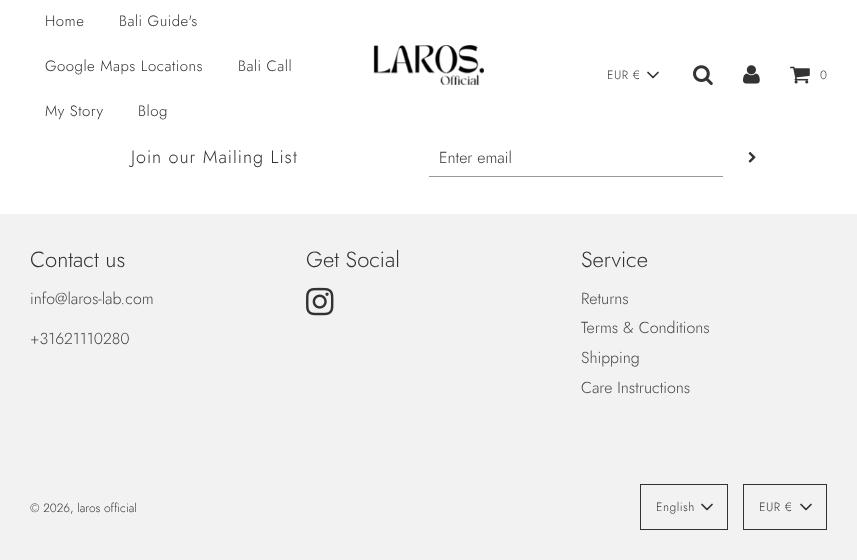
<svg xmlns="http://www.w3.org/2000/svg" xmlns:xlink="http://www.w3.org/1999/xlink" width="857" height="560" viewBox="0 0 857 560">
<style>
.cls-1{font:300 15px Jost;letter-spacing:0.5px;fill:#333333}
.cls-2{font:300 12px Jost;letter-spacing:0.5px;fill:#333333}
.cls-3{font:300 18px Jost;letter-spacing:1px;fill:#333333}
.cls-4{font:300 16px Jost;fill:#333333}
.cls-5{font:300 22px Jost;fill:#333333}
.cls-6{font:300 16px Jost;fill:#464646}
.cls-7{font:300 12px Jost;fill:#333333}
</style>
<rect width="100%" height="100%" fill="#ffffff"/>
<image xlink:href="image0.png" x="373" y="45" width="111" height="40"/>
<path fill="none" stroke="#333333" stroke-width="1.7" stroke-linecap="round" stroke-linejoin="round" d="M648 72.5L653 77.5L658 72.5"/>
<image xlink:href="image1.png" x="693" y="65" width="20" height="20"/>
<image xlink:href="image2.png" x="743" y="65" width="17" height="19"/>
<image xlink:href="image3.png" x="790" y="66" width="20" height="18"/>
<rect fill="#999999" x="429" y="176" width="294" height="1"/>
<image xlink:href="image4.png" x="748" y="151" width="8" height="12"/>
<rect fill="#f2f2f2" x="0" y="214" width="857" height="346"/>
<image xlink:href="image5.png" x="306" y="287" width="28" height="29"/>
<rect fill="none" stroke="#333333" x="640.5" y="484.5" width="87" height="45"/>
<path fill="none" stroke="#333333" stroke-width="1.7" stroke-linecap="round" stroke-linejoin="round" d="M702 504.5L707 509.5L712 504.5"/>
<rect fill="none" stroke="#333333" x="743.5" y="484.5" width="83" height="45"/>
<path fill="none" stroke="#333333" stroke-width="1.7" stroke-linecap="round" stroke-linejoin="round" d="M801 504.5L806 509.5L811 504.5"/>
<text class="cls-1" x="45" y="26">Home</text>
<text class="cls-1" x="119" y="26">Bali Guide's</text>
<text class="cls-1" x="45" y="71">Google Maps Locations</text>
<text class="cls-1" x="238" y="71">Bali Call</text>
<text class="cls-1" x="45" y="116">My Story</text>
<text class="cls-1" x="138" y="116">Blog</text>
<text class="cls-2" x="607" y="79">EUR €</text>
<text class="cls-2" x="820" y="79">0</text>
<text class="cls-3" x="131" y="163">Join our Mailing List</text>
<rect fill="#ffffff" x="234" y="148" width="2" height="2"/>
<text class="cls-4" x="439" y="163">Enter email</text>
<text class="cls-5" x="30" y="267">Contact us</text>
<text class="cls-6" x="30" y="304">info@laros-lab.com</text>
<text class="cls-6" x="30" y="344">+31621110280</text>
<text class="cls-5" x="306" y="267">Get Social</text>
<text class="cls-5" x="581" y="267">Service</text>
<text class="cls-6"><tspan x="581" y="304">Returns</tspan><tspan x="581" y="333">Terms &amp; Conditions</tspan><tspan x="581" y="363">Shipping</tspan><tspan x="581" y="393">Care Instructions</tspan></text>
<text class="cls-7" x="30" y="512">© 2026, laros official</text>
<text class="cls-2" x="656" y="511">English</text>
<text class="cls-2" x="759" y="511">EUR €</text>
</svg>
